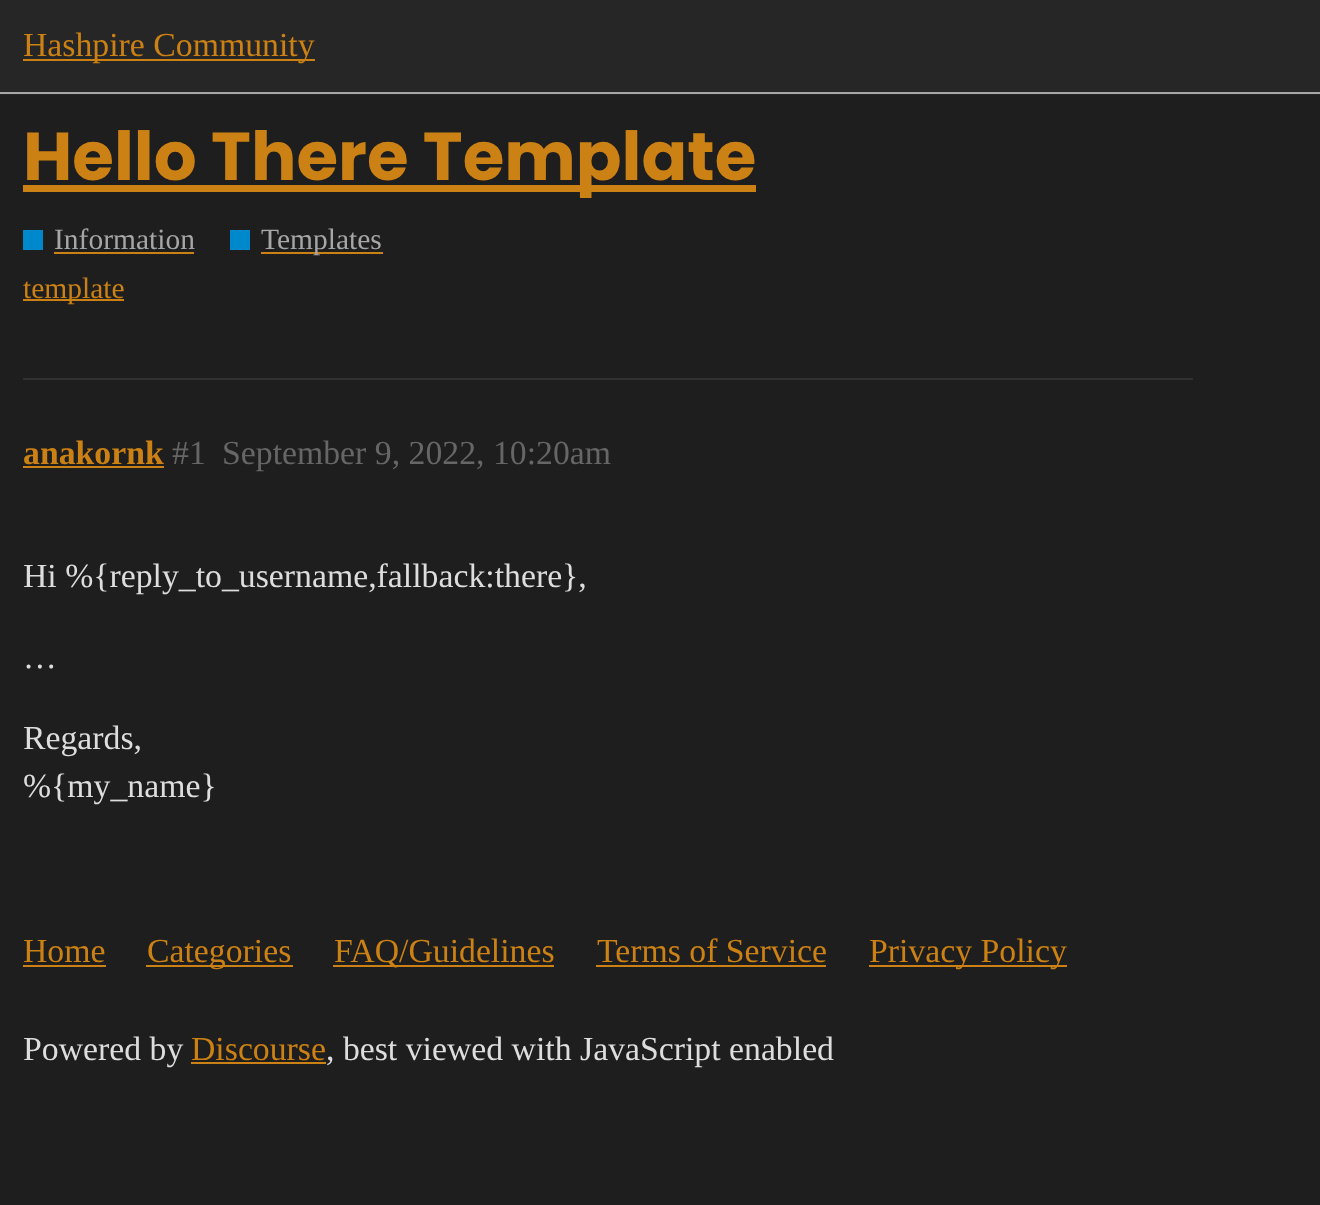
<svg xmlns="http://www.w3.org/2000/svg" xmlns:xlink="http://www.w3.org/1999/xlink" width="1320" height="1205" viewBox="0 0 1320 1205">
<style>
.cls-1{font:33.75px Liberation Serif;fill:#cc8114}
.cls-2{font:bold 67.5px Poppins;fill:#cc8114}
.cls-3{font:29.5px Liberation Serif;fill:#a6a6a6}
.cls-4{font:29.5px Liberation Serif;fill:#cc8114}
.cls-5{font:bold 33.75px Liberation Serif;fill:#cc8114}
.cls-6{font:33.75px Liberation Serif;fill:#666666}
.cls-7{font:33.75px Liberation Serif;fill:#dddddd}
</style>
<rect width="100%" height="100%" fill="#1e1e1e"/>
<rect fill="#262626" x="0" y="0" width="1320" height="95"/>
<rect fill="#a6a6a6" x="0" y="92" width="1320" height="2"/>
<rect fill="#cc8114" x="23" y="59" width="292" height="2"/>
<rect fill="#cc8114" x="23" y="185" width="733" height="7"/>
<rect fill="#0088cc" x="23" y="230" width="20" height="20"/>
<rect fill="#cc8114" x="54" y="252" width="140" height="2"/>
<rect fill="#0088cc" x="230" y="230" width="20" height="20"/>
<rect fill="#cc8114" x="261" y="252" width="122" height="2"/>
<rect fill="#cc8114" x="23" y="299" width="101" height="2"/>
<rect fill="#313131" x="23" y="378" width="1170" height="2"/>
<rect fill="#cc8114" x="23" y="466" width="141" height="2"/>
<rect fill="#cc8114" x="23" y="965" width="83" height="2"/>
<rect fill="#cc8114" x="146" y="965" width="147" height="2"/>
<rect fill="#cc8114" x="333" y="965" width="221" height="2"/>
<rect fill="#cc8114" x="596" y="965" width="230" height="2"/>
<rect fill="#cc8114" x="869" y="965" width="198" height="2"/>
<rect fill="#cc8114" x="191" y="1062" width="135" height="2"/>
<text class="cls-1" x="23" y="56">Hashpire Community</text>
<text class="cls-2" x="23" y="180">Hello There Template</text>
<text class="cls-3" x="54" y="249">Information</text>
<text class="cls-3" x="261" y="249">Templates</text>
<text class="cls-4" x="23" y="298">template</text>
<text class="cls-5" x="23" y="464">anakornk</text>
<text class="cls-6" x="172" y="464">#1</text>
<text class="cls-6" x="222" y="464">September 9, 2022, 10:20am</text>
<text class="cls-7" x="23" y="587">Hi %{reply_to_username,fallback:there},</text>
<text class="cls-7" x="23" y="668">…</text>
<text class="cls-7"><tspan x="23" y="749">Regards,</tspan><tspan x="23" y="797">%{my_name}</tspan></text>
<text class="cls-1" x="23" y="962">Home</text>
<text class="cls-1" x="147" y="962">Categories</text>
<text class="cls-1" x="334" y="962">FAQ/Guidelines</text>
<text class="cls-1" x="597" y="962">Terms of Service</text>
<text class="cls-1" x="869" y="962">Privacy Policy</text>
<text class="cls-7" x="23" y="1060">Powered by</text>
<text class="cls-1" x="191" y="1060">Discourse</text>
<text class="cls-7" x="326" y="1060">, best viewed with JavaScript enabled</text>
</svg>
